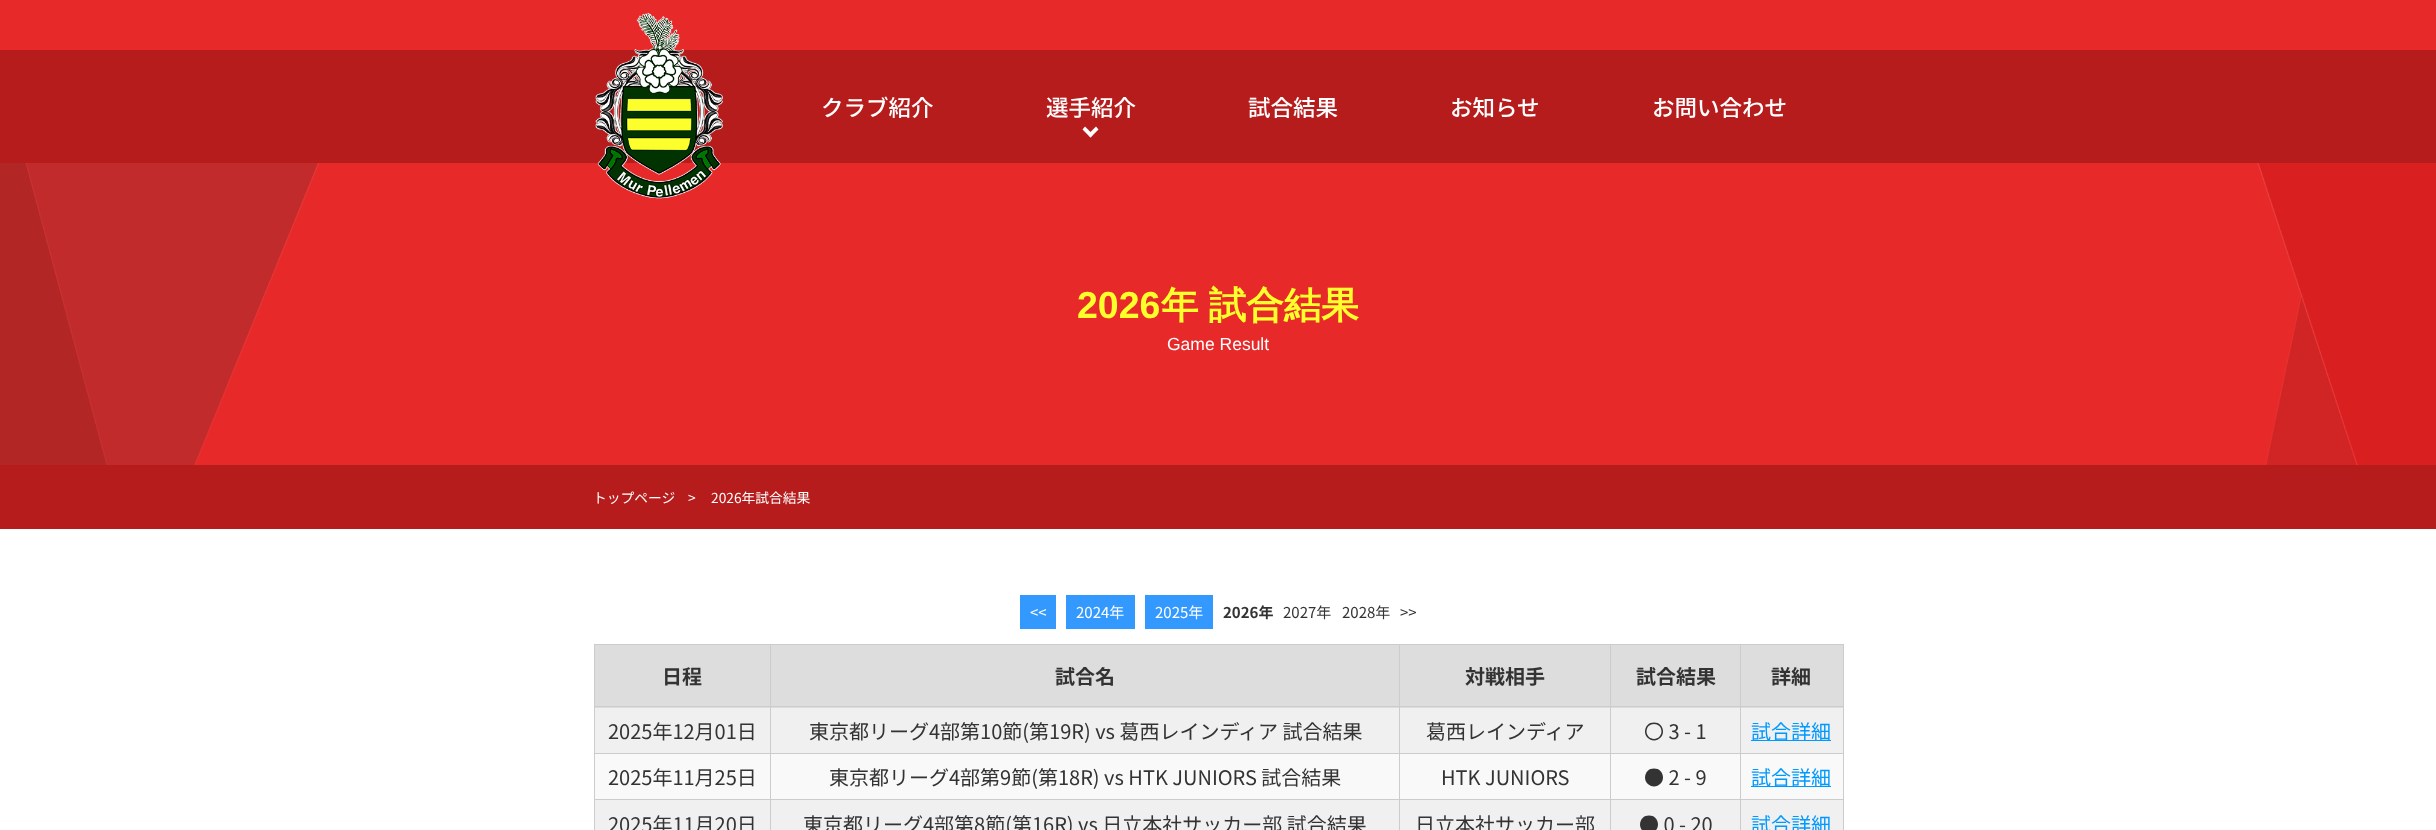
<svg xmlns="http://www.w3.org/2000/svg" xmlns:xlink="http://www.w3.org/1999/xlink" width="2436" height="830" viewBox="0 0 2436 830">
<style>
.cls-1{font:500 22.5px Noto Sans JP;fill:#ffffff}
.cls-2{font:bold 37.5px Liberation Sans;fill:#fcff2b}
.cls-3{font:bold 37.5px WenQuanYi Zen Hei;fill:#fcff2b}
.cls-4{font:17.5px Liberation Sans;fill:#ffffff}
.cls-5{font:13.75px Noto Sans JP;fill:#ffffff}
.cls-6{font:15px Noto Sans JP;fill:#ffffff}
.cls-7{font:bold 15px Noto Sans JP;fill:#333333}
.cls-8{font:15px Noto Sans JP;fill:#333333}
.cls-9{font:bold 20px Noto Sans JP;fill:#333333}
.cls-10{font:20px Noto Sans JP;fill:#333333}
.cls-11{font:20px Noto Sans JP;fill:#0099ff}
</style>
<rect width="100%" height="100%" fill="#ffffff"/>
<rect fill="#e72a29" x="0" y="0" width="2436" height="50"/>
<rect fill="#b61c1c" x="0" y="50" width="2436" height="113"/>
<image xlink:href="image1.png" x="0" y="163" width="2436" height="302"/>
<image xlink:href="image0.png" x="595" y="12" width="128" height="187"/>
<path fill="#ffffff" d="M1098.5 129.5L1090.5 137.5L1088 134.5L1096 126.5Z"/>
<path fill="#ffffff" d="M1093 134.5L1090.5 137.5L1082.5 129.5L1085 126.5Z"/>
<rect fill="#b61c1c" x="0" y="465" width="2436" height="64"/>
<rect fill="#3399ff" x="1020" y="595" width="36" height="34"/>
<rect fill="#3399ff" x="1066" y="595" width="69" height="34"/>
<rect fill="#3399ff" x="1145" y="595" width="68" height="34"/>
<rect fill="#dddddd" x="595" y="645" width="175" height="63"/>
<rect fill="#cccccc" x="1740" y="644" width="104" height="1"/>
<rect fill="#dddddd" x="1741" y="645" width="102" height="63"/>
<rect fill="#cccccc" x="1843" y="706" width="1" height="124"/>
<rect fill="#cccccc" x="1843" y="644" width="1" height="64"/>
<rect fill="#f0f0f0" x="595" y="708" width="1248" height="45"/>
<rect fill="#f9f9f9" x="595" y="754" width="1248" height="45"/>
<rect fill="#f0f0f0" x="595" y="800" width="1248" height="30"/>
<rect fill="#cccccc" x="1740" y="799" width="1" height="31"/>
<rect fill="#cccccc" x="1740" y="799" width="104" height="1"/>
<rect fill="#cccccc" x="1740" y="753" width="1" height="47"/>
<rect fill="#cccccc" x="1740" y="753" width="104" height="1"/>
<rect fill="#cccccc" x="1740" y="706" width="1" height="48"/>
<rect fill="#cccccc" x="1740" y="706" width="104" height="1"/>
<rect fill="#cccccc" x="1740" y="644" width="1" height="64"/>
<rect fill="#cccccc" x="1610" y="644" width="131" height="1"/>
<rect fill="#dddddd" x="1611" y="645" width="129" height="63"/>
<rect fill="#cccccc" x="1610" y="799" width="1" height="31"/>
<rect fill="#cccccc" x="1610" y="799" width="131" height="1"/>
<rect fill="#cccccc" x="1610" y="753" width="1" height="47"/>
<rect fill="#cccccc" x="1610" y="753" width="131" height="1"/>
<rect fill="#cccccc" x="1610" y="706" width="1" height="48"/>
<rect fill="#cccccc" x="1610" y="706" width="131" height="1"/>
<rect fill="#cccccc" x="1610" y="644" width="1" height="64"/>
<rect fill="#cccccc" x="1399" y="644" width="212" height="1"/>
<rect fill="#dddddd" x="1400" y="645" width="210" height="63"/>
<rect fill="#cccccc" x="1399" y="799" width="1" height="31"/>
<rect fill="#cccccc" x="1399" y="799" width="212" height="1"/>
<rect fill="#cccccc" x="1399" y="753" width="1" height="47"/>
<rect fill="#cccccc" x="1399" y="753" width="212" height="1"/>
<rect fill="#cccccc" x="1399" y="706" width="1" height="48"/>
<rect fill="#cccccc" x="1399" y="706" width="212" height="1"/>
<rect fill="#cccccc" x="1399" y="644" width="1" height="64"/>
<rect fill="#cccccc" x="770" y="644" width="630" height="1"/>
<rect fill="#dddddd" x="771" y="645" width="628" height="63"/>
<rect fill="#cccccc" x="770" y="799" width="1" height="31"/>
<rect fill="#cccccc" x="770" y="799" width="630" height="1"/>
<rect fill="#cccccc" x="770" y="753" width="1" height="47"/>
<rect fill="#cccccc" x="770" y="753" width="630" height="1"/>
<rect fill="#cccccc" x="770" y="706" width="1" height="48"/>
<rect fill="#cccccc" x="770" y="706" width="630" height="1"/>
<rect fill="#cccccc" x="770" y="644" width="1" height="64"/>
<rect fill="#cccccc" x="594" y="644" width="177" height="1"/>
<rect fill="#cccccc" x="594" y="799" width="1" height="31"/>
<rect fill="#cccccc" x="594" y="799" width="177" height="1"/>
<rect fill="#cccccc" x="594" y="753" width="1" height="47"/>
<rect fill="#cccccc" x="594" y="753" width="177" height="1"/>
<rect fill="#cccccc" x="594" y="706" width="1" height="48"/>
<rect fill="#cccccc" x="594" y="706" width="177" height="1"/>
<rect fill="#cccccc" x="594" y="644" width="1" height="64"/>
<rect fill="#0099ff" x="1751" y="740" width="80" height="1"/>
<rect fill="#0099ff" x="1751" y="786" width="80" height="1"/>
<text class="cls-1" x="821" y="116">クラブ紹介</text>
<text class="cls-1" x="1046" y="116">選手紹介</text>
<text class="cls-1" x="1248" y="116">試合結果</text>
<text class="cls-1" x="1450" y="116">お知らせ</text>
<text class="cls-1" x="1652" y="116">お問い合わせ</text>
<text class="cls-2" x="1077" y="318">2026</text>
<text class="cls-3" x="1161" y="318" word-spacing="-1">年 試合結果</text>
<text class="cls-4" x="1167" y="350">Game Result</text>
<text class="cls-5" x="593" y="503">トップページ</text>
<text class="cls-5" x="688" y="503">&gt;</text>
<text class="cls-5" x="711" y="503">2026年試合結果</text>
<text class="cls-6" x="1030" y="618">&lt;&lt;</text>
<text class="cls-6" x="1076" y="618">2024年</text>
<text class="cls-6" x="1155" y="618">2025年</text>
<text class="cls-7" x="1223" y="618">2026年</text>
<text class="cls-8" x="1283" y="618">2027年</text>
<text class="cls-8" x="1342" y="618">2028年</text>
<text class="cls-8" x="1400" y="618">&gt;&gt;</text>
<text class="cls-9" x="662" y="684">日程</text>
<text class="cls-9" x="1055" y="684">試合名</text>
<text class="cls-9" x="1465" y="684">対戦相手</text>
<text class="cls-9" x="1636" y="684">試合結果</text>
<text class="cls-9" x="1771" y="684">詳細</text>
<text class="cls-10" x="608" y="739">2025年12月01日</text>
<text class="cls-10" x="809" y="739">東京都リーグ4部第10節(第19R) vs 葛西レインディア 試合結果</text>
<text class="cls-10" x="1426" y="739">葛西レインディア</text>
<text class="cls-10" x="1644" y="739">〇 3 - 1</text>
<text class="cls-11" x="1751" y="739">試合詳細</text>
<text class="cls-10" x="608" y="785">2025年11月25日</text>
<text class="cls-10" x="829" y="785">東京都リーグ4部第9節(第18R) vs HTK JUNIORS 試合結果</text>
<text class="cls-10" x="1441" y="785">HTK JUNIORS</text>
<text class="cls-10" x="1644" y="785">● 2 - 9</text>
<text class="cls-11" x="1751" y="785">試合詳細</text>
<text class="cls-10" x="608" y="832">2025年11月20日</text>
<text class="cls-10" x="803" y="832">東京都リーグ4部第8節(第16R) vs 日立本社サッカー部 試合結果</text>
<text class="cls-10" x="1415" y="832">日立本社サッカー部</text>
<text class="cls-10" x="1639" y="832">● 0 - 20</text>
<text class="cls-11" x="1751" y="832">試合詳細</text>
</svg>
